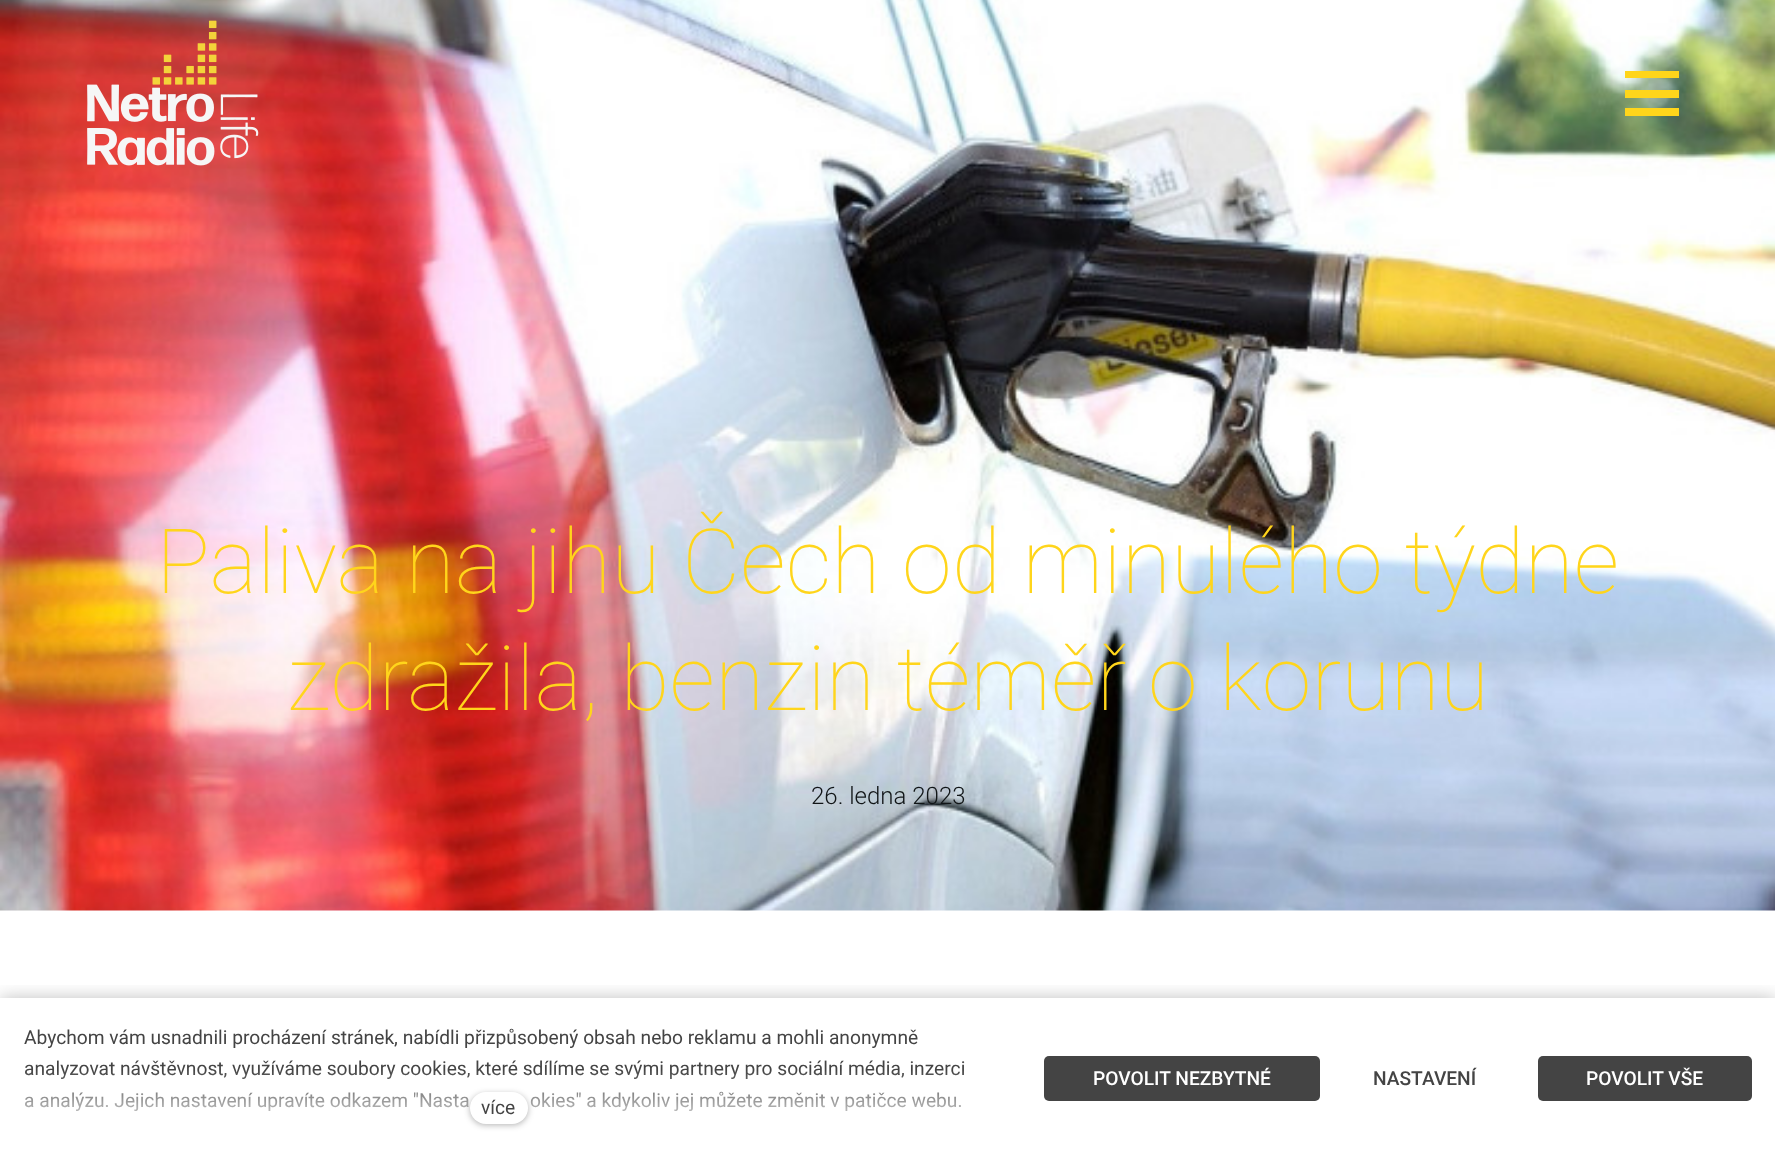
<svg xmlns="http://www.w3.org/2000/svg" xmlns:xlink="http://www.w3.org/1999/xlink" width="1775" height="1159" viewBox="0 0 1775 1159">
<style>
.cls-1{font:100 90px Roboto;fill:#ffd51b}
.cls-2{font:300 24px Roboto;fill:#111517}
.cls-3{font:19.2px Roboto;fill:#444444}
.cls-4{font:500 19.2px Roboto;fill:#ffffff}
.cls-5{font:500 19.2px Roboto;fill:#444444}
</style>
<defs>
<clipPath id="clip1"><rect x="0" y="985" width="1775" height="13"/></clipPath>
<linearGradient id="g1" gradientUnits="userSpaceOnUse" x1="498" y1="1136" x2="498" y2="1070"><stop offset="0" stop-color="#ffffff"/><stop offset="1" stop-color="#ffffff" stop-opacity="0"/></linearGradient>
</defs>
<rect width="100%" height="100%" fill="#ffffff"/>
<image xlink:href="image1.png" x="0" y="0" width="1775" height="911"/>
<image xlink:href="image0.png" x="87" y="20" width="172" height="146"/>
<rect fill="#ffd51b" x="1625" y="71" width="54" height="7"/>
<rect fill="#ffd51b" x="1625" y="90" width="54" height="8"/>
<rect fill="#ffd51b" x="1625" y="108" width="54" height="8"/>
<g clip-path="url(#clip1)">
<rect fill="#000000" fill-opacity="0.25" filter="blur(9px)" x="0" y="998" width="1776" height="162"/>
</g>
<rect fill="#444444" x="1044" y="1056" width="276" height="45" rx="5"/>
<rect fill="#444444" x="1538" y="1056" width="214" height="45" rx="5"/>
<text class="cls-1" x="156" y="593">Paliva na jihu Čech od minulého týdne</text>
<text class="cls-1" x="287" y="710">zdražila, benzin téměř o korunu</text>
<text class="cls-2" x="811" y="804">26. ledna 2023</text>
<text class="cls-3"><tspan x="24" y="1044">Abychom vám usnadnili procházení stránek, nabídli přizpůsobený obsah nebo reklamu a mohli anonymně</tspan><tspan x="24" y="1075">analyzovat návštěvnost, využíváme soubory cookies, které sdílíme se svými partnery pro sociální média, inzerci</tspan><tspan x="24" y="1107">a analýzu. Jejich nastavení upravíte odkazem "Nasta</tspan></text>
<text class="cls-3" x="530" y="1107">okies" a kdykoliv jej můžete změnit v patičce webu.</text>
<rect fill="url(#g1)" x="25" y="1071" width="940" height="41"/>
<rect fill="#000000" fill-opacity="0.3" filter="blur(3px)" x="470" y="1094" width="58" height="31" rx="15.5"/>
<rect fill="#ffffff" x="470" y="1092" width="58" height="32" rx="16"/>
<text class="cls-3" x="481" y="1114">více</text>
<text class="cls-4" x="1093" y="1085">POVOLIT NEZBYTNÉ</text>
<text class="cls-5" x="1373" y="1085">NASTAVENÍ</text>
<text class="cls-4" x="1586" y="1085">POVOLIT VŠE</text>
</svg>
